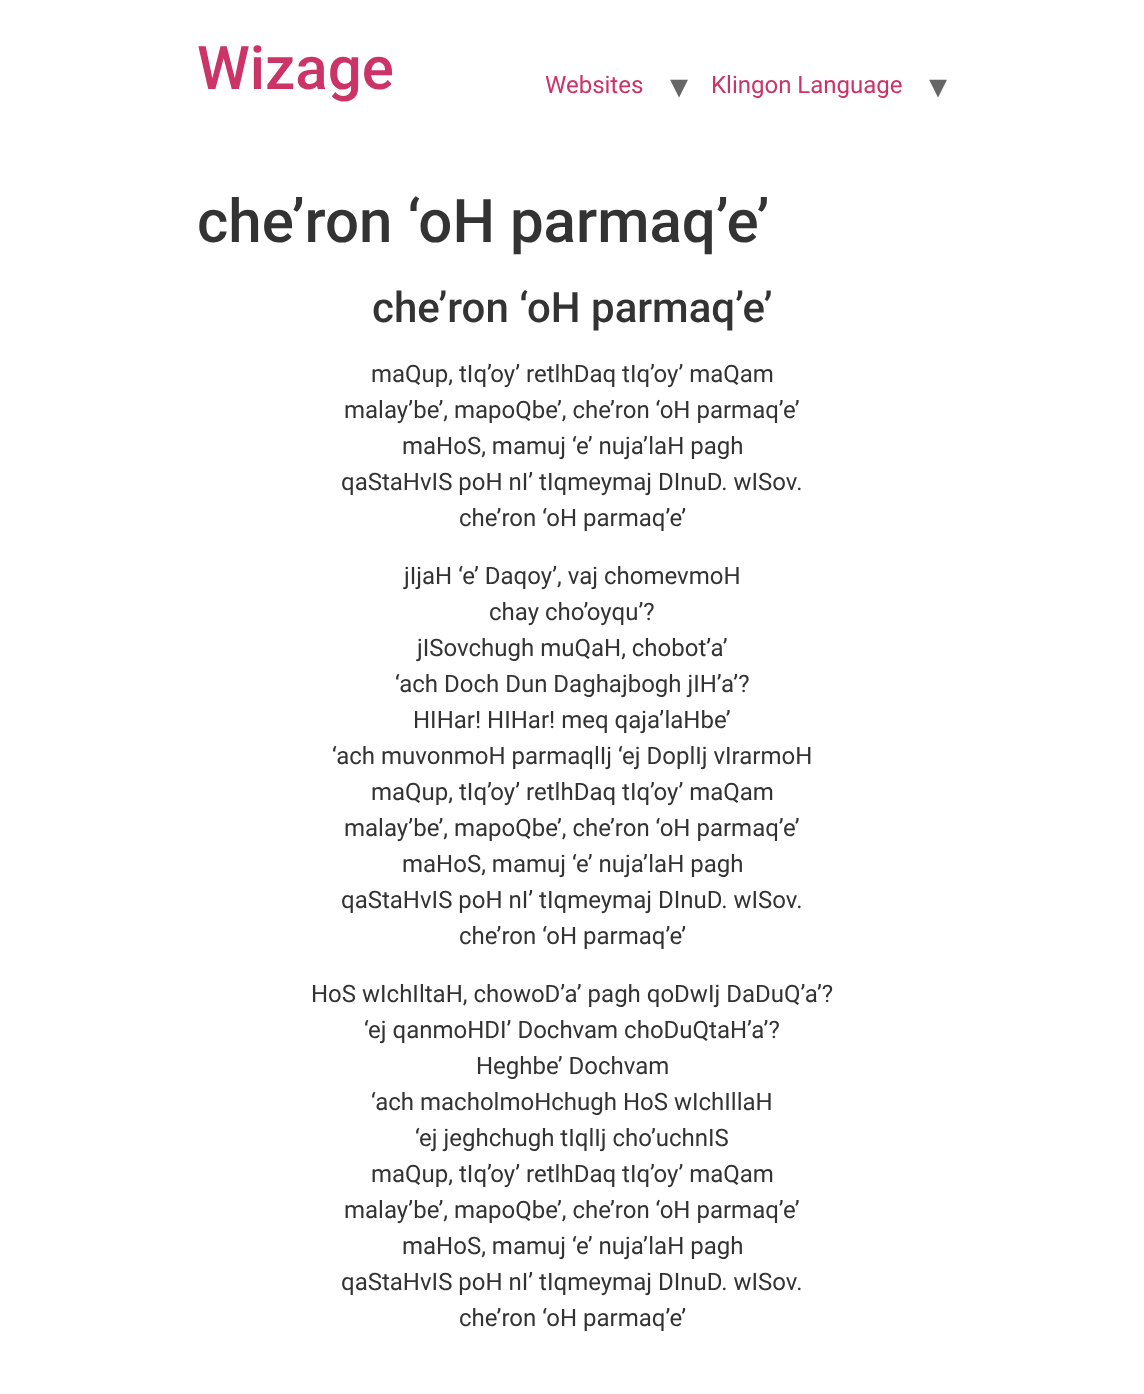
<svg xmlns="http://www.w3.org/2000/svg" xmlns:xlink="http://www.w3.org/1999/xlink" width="1144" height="1394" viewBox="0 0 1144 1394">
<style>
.cls-1{font:500 60px Roboto;fill:#cc3366}
.cls-2{font:24px Roboto;fill:#cc3366}
.cls-3{font:36px DejaVu Sans;fill:#666666}
.cls-4{font:500 60px Roboto;fill:#333333}
.cls-5{font:500 42px Roboto;fill:#333333}
.cls-6{font:24px Roboto;fill:#333333}
</style>
<rect width="100%" height="100%" fill="#ffffff"/>
<text class="cls-1" x="197" y="89">Wizage</text>
<text class="cls-2" x="545" y="93">Websites</text>
<text class="cls-3" x="670" y="98">▾</text>
<text class="cls-2" x="711" y="93">Klingon Language</text>
<text class="cls-3" x="929" y="98">▾</text>
<text class="cls-4" x="197" y="242">che’ron ‘oH parmaq’e’</text>
<text class="cls-5" x="372" y="322">che’ron ‘oH parmaq’e’</text>
<text class="cls-6" x="371" y="382">maQup, tIq’oy’ retlhDaq tIq’oy’ maQam</text>
<text class="cls-6" x="344" y="418">malay’be’, mapoQbe’, che’ron ‘oH parmaq’e’</text>
<text class="cls-6" x="402" y="454">maHoS, mamuj ‘e’ nuja’laH pagh</text>
<text class="cls-6" x="341" y="490">qaStaHvIS poH nI’ tIqmeymaj DInuD. wISov.</text>
<text class="cls-6" x="459" y="526">che’ron ‘oH parmaq’e’</text>
<text class="cls-6" x="404" y="584">jIjaH ‘e’ Daqoy’, vaj chomevmoH</text>
<text class="cls-6" x="489" y="620">chay cho’oyqu’?</text>
<text class="cls-6" x="417" y="656">jISovchugh muQaH, chobot’a’</text>
<text class="cls-6" x="395" y="692">‘ach Doch Dun Daghajbogh jIH’a’?</text>
<text class="cls-6" x="413" y="728">HIHar! HIHar! meq qaja’laHbe’</text>
<text class="cls-6" x="332" y="764">‘ach muvonmoH parmaqlIj ‘ej DoplIj vIrarmoH</text>
<text class="cls-6" x="371" y="800">maQup, tIq’oy’ retlhDaq tIq’oy’ maQam</text>
<text class="cls-6" x="344" y="836">malay’be’, mapoQbe’, che’ron ‘oH parmaq’e’</text>
<text class="cls-6" x="402" y="872">maHoS, mamuj ‘e’ nuja’laH pagh</text>
<text class="cls-6" x="341" y="908">qaStaHvIS poH nI’ tIqmeymaj DInuD. wISov.</text>
<text class="cls-6" x="459" y="944">che’ron ‘oH parmaq’e’</text>
<text class="cls-6" x="311" y="1002">HoS wIchIltaH, chowoD’a’ pagh qoDwIj DaDuQ’a’?</text>
<text class="cls-6" x="364" y="1038">‘ej qanmoHDI’ Dochvam choDuQtaH’a’?</text>
<text class="cls-6" x="476" y="1074">Heghbe’ Dochvam</text>
<text class="cls-6" x="371" y="1110">‘ach macholmoHchugh HoS wIchIllaH</text>
<text class="cls-6" x="415" y="1146">‘ej jeghchugh tIqlIj cho’uchnIS</text>
<text class="cls-6" x="371" y="1182">maQup, tIq’oy’ retlhDaq tIq’oy’ maQam</text>
<text class="cls-6" x="344" y="1218">malay’be’, mapoQbe’, che’ron ‘oH parmaq’e’</text>
<text class="cls-6" x="402" y="1254">maHoS, mamuj ‘e’ nuja’laH pagh</text>
<text class="cls-6" x="341" y="1290">qaStaHvIS poH nI’ tIqmeymaj DInuD. wISov.</text>
<text class="cls-6" x="459" y="1326">che’ron ‘oH parmaq’e’</text>
</svg>
